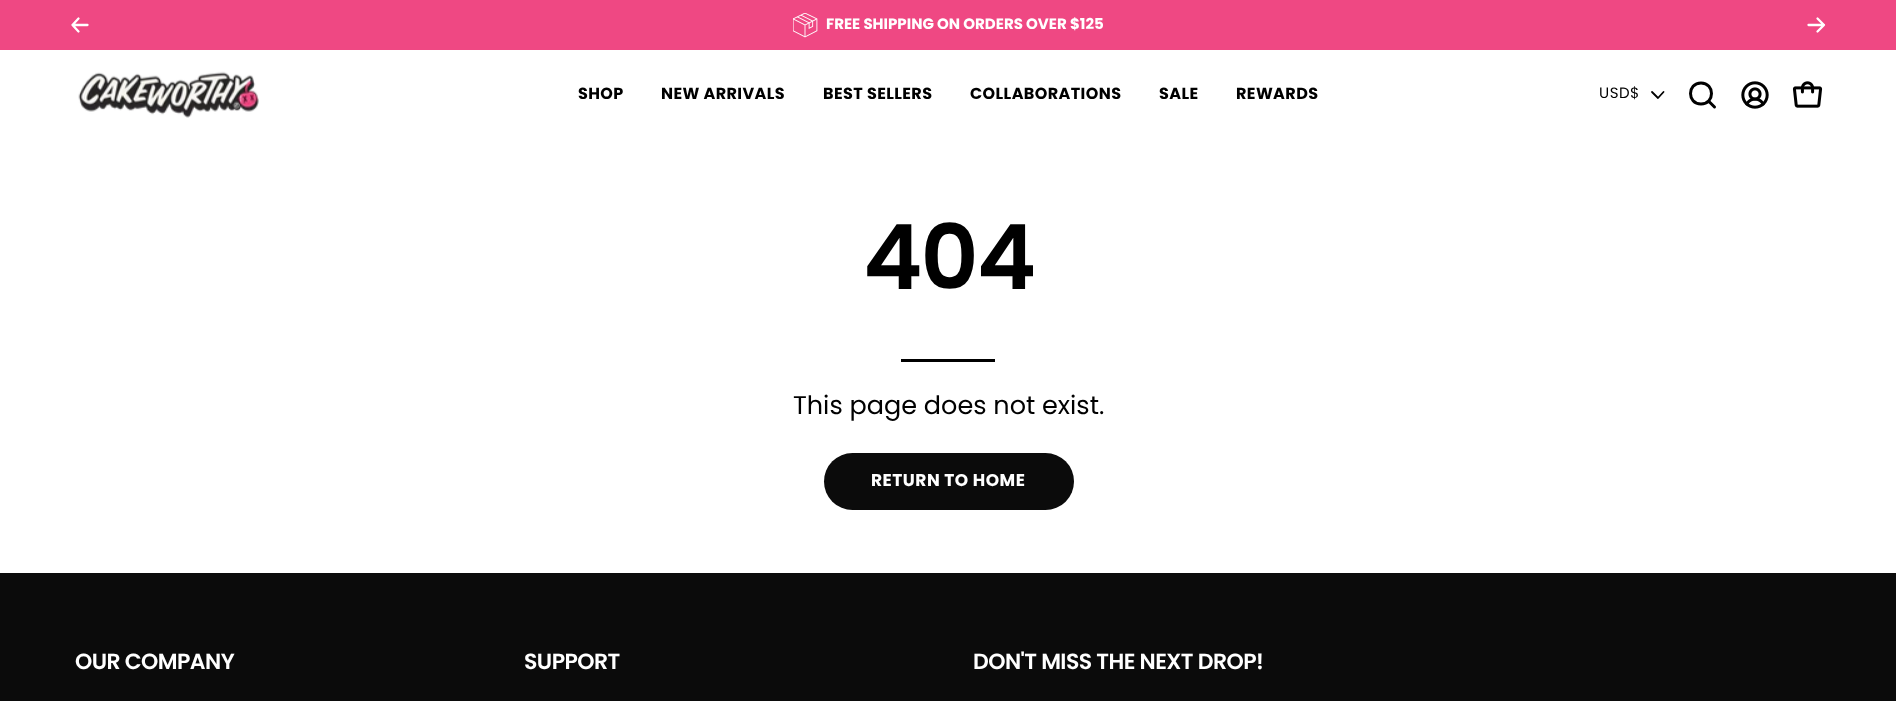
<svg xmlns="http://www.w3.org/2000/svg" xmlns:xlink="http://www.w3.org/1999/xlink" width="1896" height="701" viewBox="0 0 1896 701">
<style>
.cls-1{font:bold 15px Poppins;fill:#ffffff}
.cls-2{font:bold 16px Poppins;letter-spacing:0.4px;fill:#000000}
.cls-3{font:15px Poppins;letter-spacing:0.5px;fill:#000000}
.cls-4{font:600 90px Poppins;letter-spacing:-2px;fill:#000000}
.cls-5{font:25.5px Poppins;fill:#000000}
.cls-6{font:bold 17px Poppins;letter-spacing:0.5px;fill:#ffffff}
.cls-7{font:600 22px Poppins;letter-spacing:-0.55px;fill:#ffffff}
</style>
<rect width="100%" height="100%" fill="#ffffff"/>
<rect fill="#ef4883" x="0" y="0" width="1896" height="50"/>
<path fill="none" stroke="#ffffff" stroke-width="2.3" stroke-linecap="round" stroke-linejoin="round" d="M87.5 25H72.5M72.5 25L78.5 31.5M72.5 25L78.5 18.5"/>
<image xlink:href="image0.png" x="793" y="13" width="25" height="25"/>
<path fill="none" stroke="#ffffff" stroke-width="2.3" stroke-linecap="round" stroke-linejoin="round" d="M1808.5 25H1824M1824 25L1817.5 18.5M1824 25L1817.5 31.5"/>
<image xlink:href="image1.png" x="78" y="71" width="181" height="47"/>
<path fill="none" stroke="#000000" stroke-width="1.8" stroke-linecap="round" stroke-linejoin="round" d="M1663.5 92L1658 98L1652 92"/>
<path fill="none" stroke="#000000" stroke-width="3" stroke-linecap="round" stroke-linejoin="round" d="M1701 104C1715 104 1715 83 1701 83C1687 83 1687 104 1701 104ZM1708.5 101L1714.5 107"/>
<image xlink:href="image2.png" x="1741" y="81" width="28" height="28"/>
<image xlink:href="image3.png" x="1792" y="81" width="31" height="27"/>
<rect fill="#000000" x="901" y="359" width="94" height="3"/>
<rect fill="#0b0b0b" x="824" y="453" width="250" height="57" rx="28.5"/>
<rect fill="#0b0b0b" x="0" y="573" width="1896" height="128"/>
<text class="cls-1" x="826" y="29">FREE SHIPPING ON ORDERS OVER $125</text>
<text class="cls-2" x="578" y="99">SHOP</text>
<text class="cls-2" x="661" y="99">NEW ARRIVALS</text>
<text class="cls-2" x="823" y="99">BEST SELLERS</text>
<text class="cls-2" x="970" y="99">COLLABORATIONS</text>
<text class="cls-2" x="1159" y="99">SALE</text>
<text class="cls-2" x="1236" y="99">REWARDS</text>
<text class="cls-3" x="1599" y="98">USD$</text>
<text class="cls-4" x="863" y="289">404</text>
<text class="cls-5" x="793" y="414">This page does not exist.</text>
<text class="cls-6" x="871" y="486">RETURN TO HOME</text>
<text class="cls-7" x="75" y="669">OUR COMPANY</text>
<text class="cls-7" x="524" y="669">SUPPORT</text>
<text class="cls-7" x="973" y="669">DON'T MISS THE NEXT DROP!</text>
</svg>
